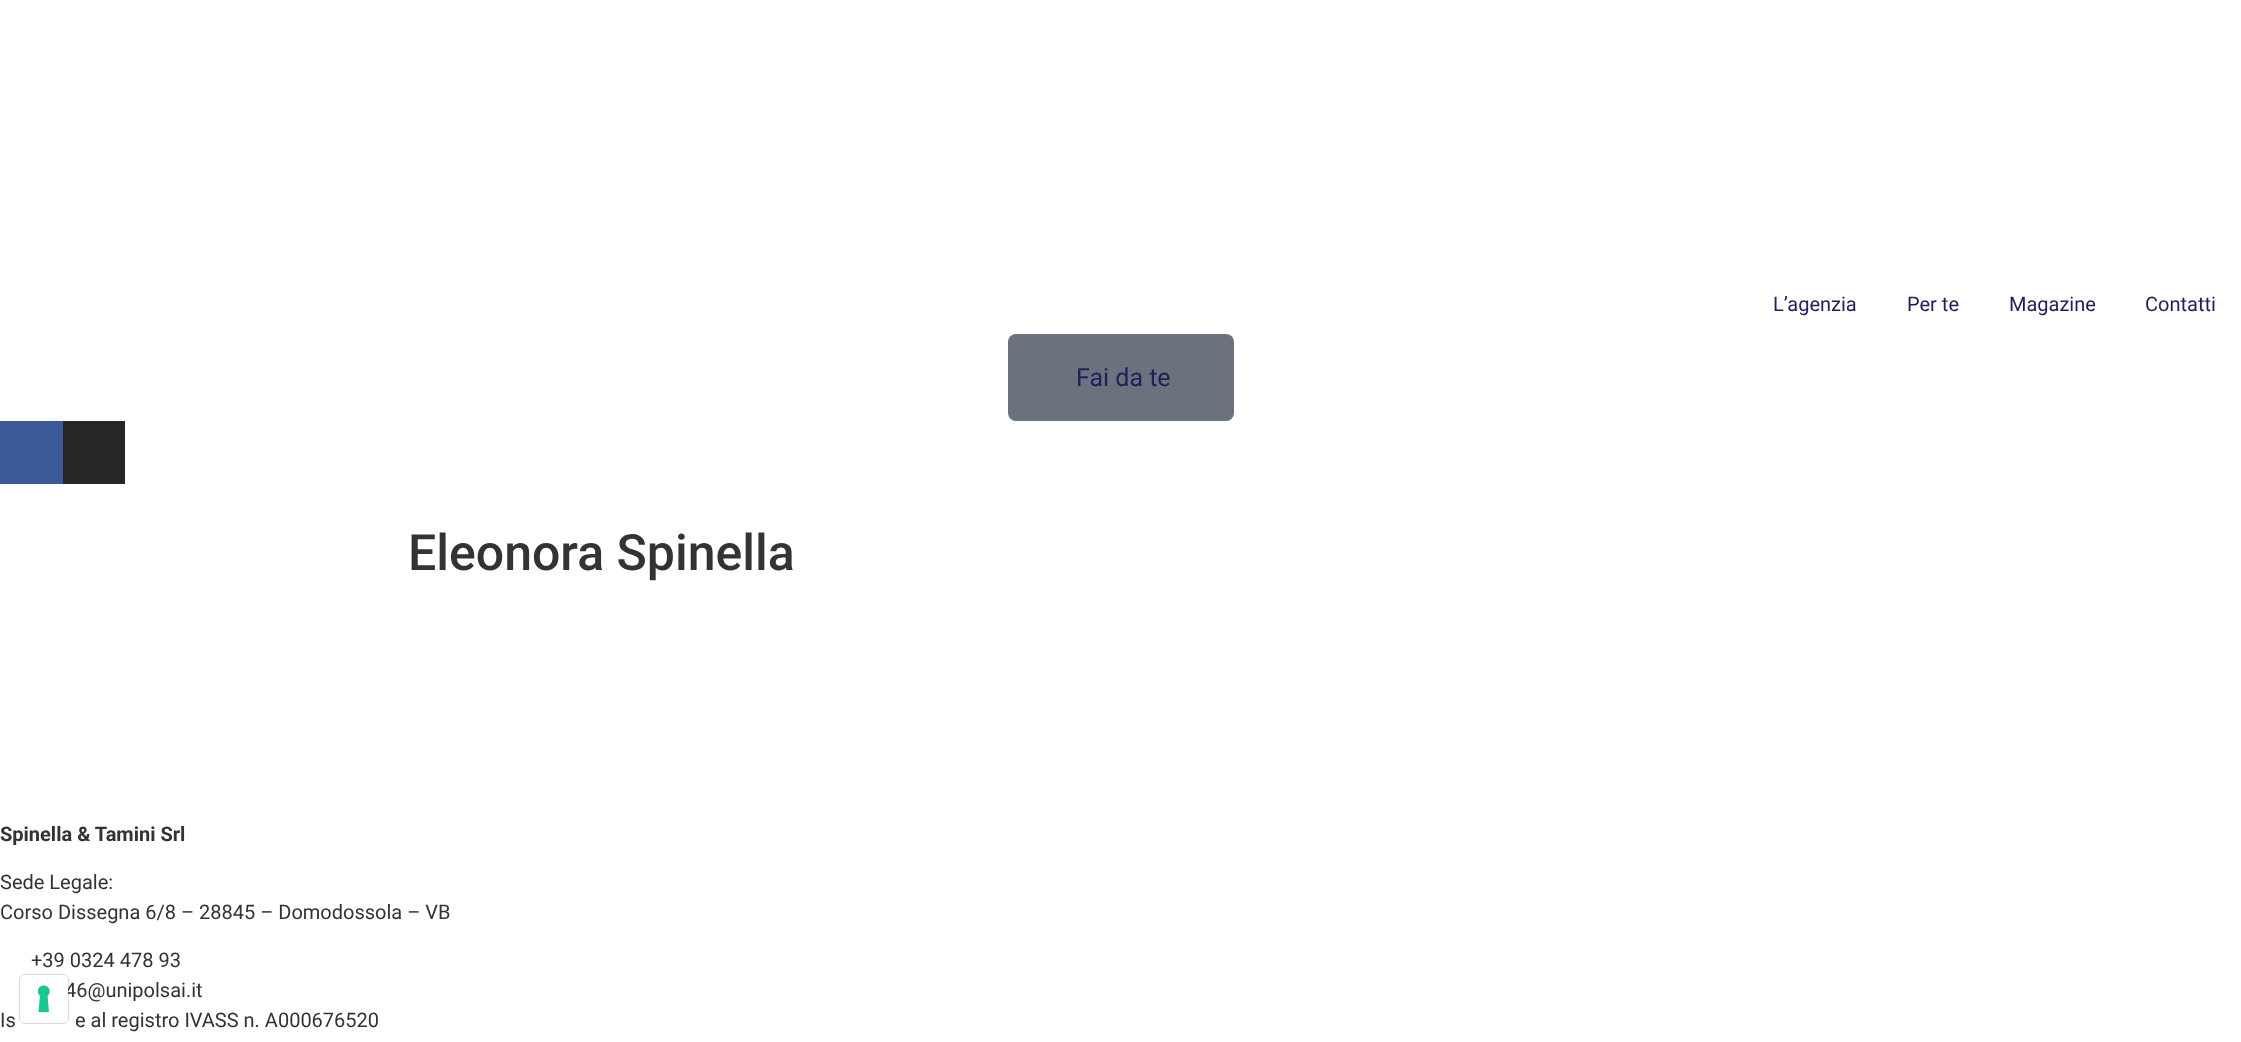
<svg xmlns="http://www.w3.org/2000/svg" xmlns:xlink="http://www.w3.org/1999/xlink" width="2241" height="1042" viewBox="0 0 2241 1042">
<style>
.cls-1{font:20px Roboto;fill:#251d5a}
.cls-2{font:25px Roboto;fill:#251d5a}
.cls-3{font:500 50px Roboto;fill:#333333}
.cls-4{font:bold 20px Roboto;fill:#333333}
.cls-5{font:20px Roboto;fill:#333333}
</style>
<rect width="100%" height="100%" fill="#ffffff"/>
<rect fill="#69727d" x="1008" y="334" width="226" height="87" rx="8"/>
<rect fill="#3b5998" x="0" y="421" width="63" height="63"/>
<rect fill="#262626" x="63" y="421" width="62" height="63"/>
<text class="cls-1" x="1773" y="311">L’agenzia</text>
<text class="cls-1" x="1907" y="311">Per te</text>
<text class="cls-1" x="2009" y="311">Magazine</text>
<text class="cls-1" x="2145" y="311">Contatti</text>
<text class="cls-2" x="1076" y="386">Fai da te</text>
<text class="cls-3" x="408" y="570">Eleonora Spinella</text>
<text class="cls-4" x="0" y="841">Spinella &amp; Tamini Srl</text>
<text class="cls-5"><tspan x="0" y="889">Sede Legale:</tspan><tspan x="0" y="919">Corso Dissegna 6/8 – 28845 – Domodossola – VB</tspan></text>
<text class="cls-5" x="31" y="967">+39 0324 478 93</text>
<text class="cls-5" x="65" y="997">46@unipolsai.it</text>
<text class="cls-5" x="0" y="1027">Is</text>
<text class="cls-5" x="75" y="1027">e al registro IVASS n. A000676520</text>
<rect fill="none" stroke="#000000" stroke-opacity="0.15" x="19.5" y="974.5" width="49" height="49" rx="5.5"/>
<rect fill="#ffffff" x="20" y="975" width="48" height="48" rx="5"/>
<image xlink:href="image0.png" x="37" y="985" width="13" height="28"/>
</svg>
